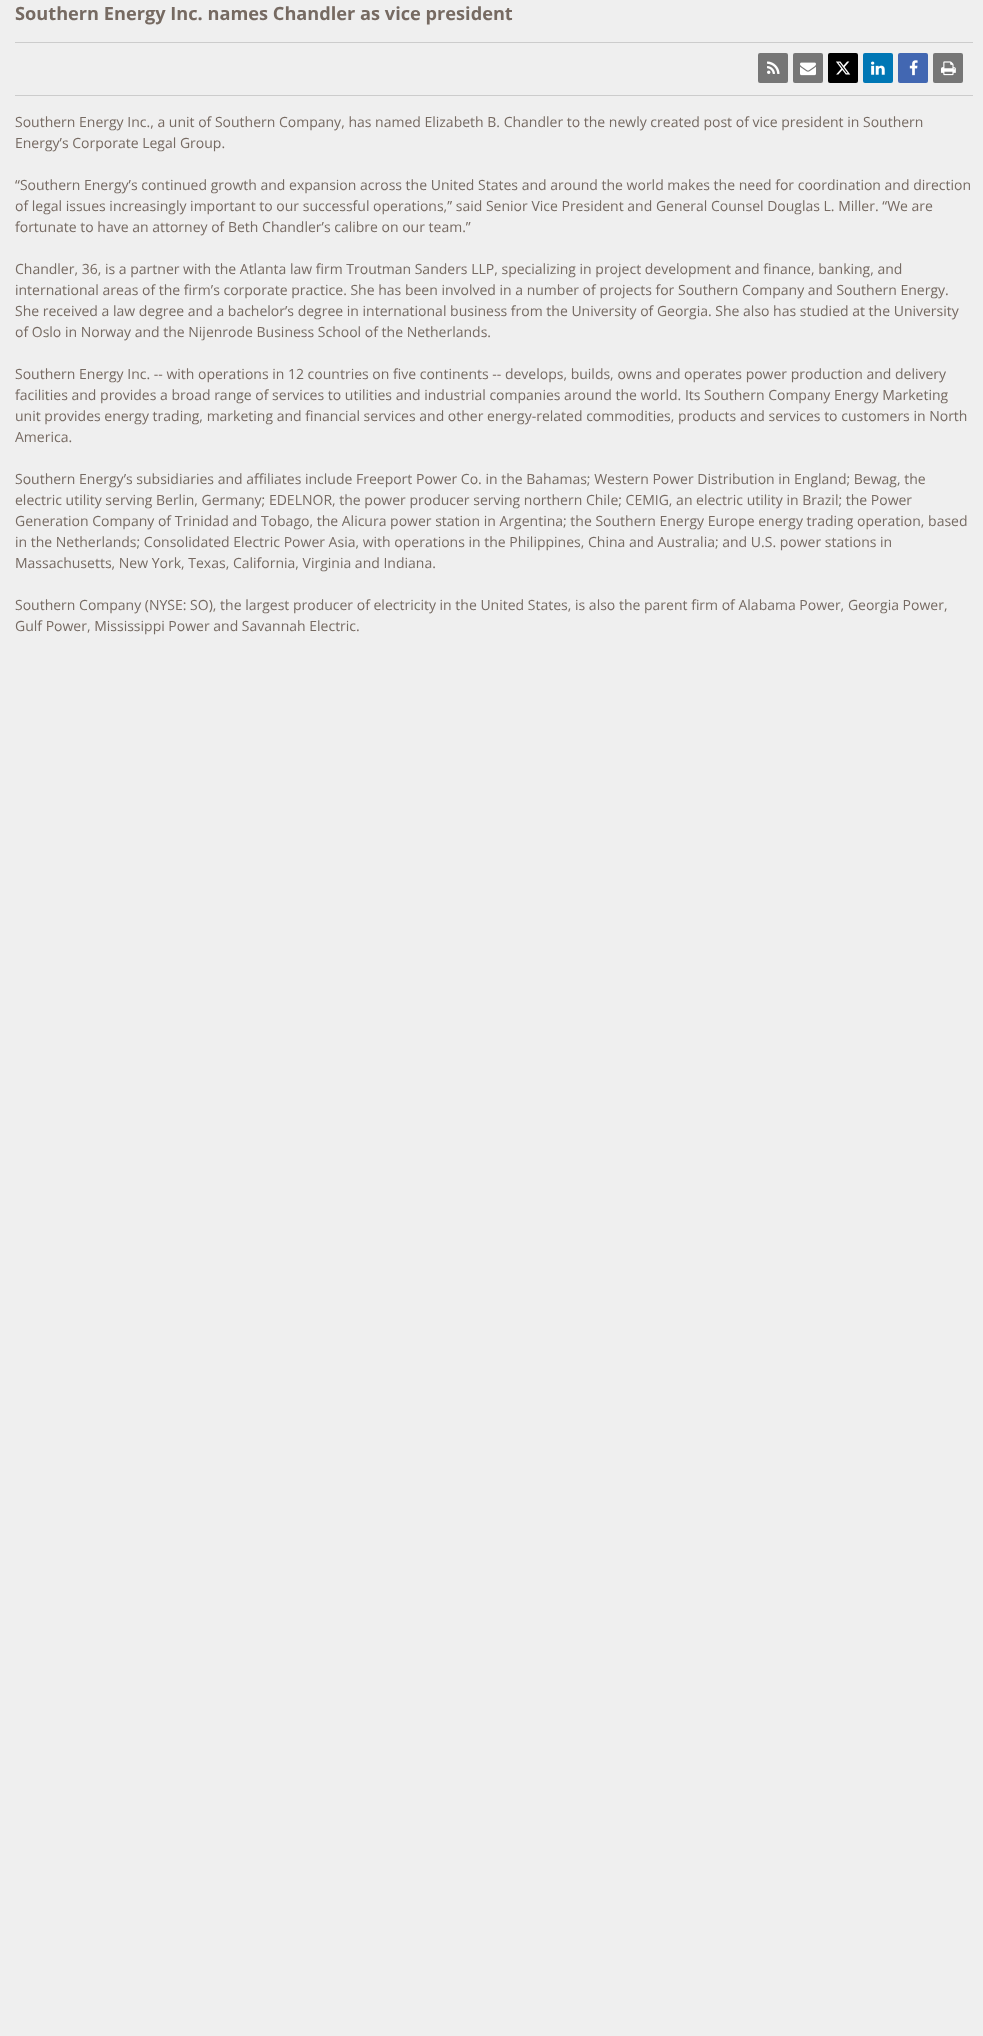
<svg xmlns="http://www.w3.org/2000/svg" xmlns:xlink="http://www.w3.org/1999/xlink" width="983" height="2036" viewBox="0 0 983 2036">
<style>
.cls-1{font:bold 18.2px Open Sans;fill:#766a62}
.cls-2{font:14px Open Sans;fill:#766a62}
</style>
<rect width="100%" height="100%" fill="#efefef"/>
<rect fill="#cccccc" x="15" y="42" width="958" height="1"/>
<rect fill="#cccccc" x="15" y="95" width="958" height="1"/>
<rect fill="#767676" x="758" y="53" width="30" height="30" rx="2"/>
<image xlink:href="image0.png" x="767" y="61" width="13" height="13"/>
<rect fill="#767676" x="793" y="53" width="30" height="30" rx="2"/>
<image xlink:href="image1.png" x="800" y="62" width="16" height="14"/>
<rect fill="#000000" x="828" y="53" width="30" height="30" rx="2"/>
<image xlink:href="image2.png" x="836" y="61" width="15" height="14"/>
<rect fill="#0077b5" x="863" y="53" width="30" height="30" rx="2"/>
<image xlink:href="image3.png" x="871" y="61" width="14" height="14"/>
<rect fill="#4267b2" x="898" y="53" width="30" height="30" rx="2"/>
<image xlink:href="image4.png" x="909" y="60" width="9" height="16"/>
<rect fill="#767676" x="933" y="53" width="30" height="30" rx="2"/>
<image xlink:href="image5.png" x="941" y="61" width="15" height="15"/>
<text class="cls-1" x="15" y="20">Southern Energy Inc. names Chandler as vice president</text>
<text class="cls-2"><tspan x="15" y="127">Southern Energy Inc., a unit of Southern Company, has named Elizabeth B. Chandler to the newly created post of vice president in Southern</tspan><tspan x="15" y="148">Energy’s Corporate Legal Group.</tspan></text>
<text class="cls-2"><tspan x="15" y="190">“Southern Energy’s continued growth and expansion across the United States and around the world makes the need for coordination and direction</tspan><tspan x="15" y="211">of legal issues increasingly important to our successful operations,” said Senior Vice President and General Counsel Douglas L. Miller. “We are</tspan><tspan x="15" y="232">fortunate to have an attorney of Beth Chandler’s calibre on our team.”</tspan></text>
<text class="cls-2"><tspan x="15" y="274">Chandler, 36, is a partner with the Atlanta law firm Troutman Sanders LLP, specializing in project development and finance, banking, and</tspan><tspan x="15" y="295">international areas of the firm’s corporate practice. She has been involved in a number of projects for Southern Company and Southern Energy.</tspan><tspan x="15" y="316">She received a law degree and a bachelor’s degree in international business from the University of Georgia. She also has studied at the University</tspan><tspan x="15" y="337">of Oslo in Norway and the Nijenrode Business School of the Netherlands.</tspan></text>
<text class="cls-2"><tspan x="15" y="379">Southern Energy Inc. -- with operations in 12 countries on five continents -- develops, builds, owns and operates power production and delivery</tspan><tspan x="15" y="400">facilities and provides a broad range of services to utilities and industrial companies around the world. Its Southern Company Energy Marketing</tspan><tspan x="15" y="421">unit provides energy trading, marketing and financial services and other energy-related commodities, products and services to customers in North</tspan><tspan x="15" y="442">America.</tspan></text>
<text class="cls-2"><tspan x="15" y="484">Southern Energy’s subsidiaries and affiliates include Freeport Power Co. in the Bahamas; Western Power Distribution in England; Bewag, the</tspan><tspan x="15" y="505">electric utility serving Berlin, Germany; EDELNOR, the power producer serving northern Chile; CEMIG, an electric utility in Brazil; the Power</tspan><tspan x="15" y="526">Generation Company of Trinidad and Tobago, the Alicura power station in Argentina; the Southern Energy Europe energy trading operation, based</tspan><tspan x="15" y="547">in the Netherlands; Consolidated Electric Power Asia, with operations in the Philippines, China and Australia; and U.S. power stations in</tspan><tspan x="15" y="568">Massachusetts, New York, Texas, California, Virginia and Indiana.</tspan></text>
<text class="cls-2"><tspan x="15" y="610">Southern Company (NYSE: SO), the largest producer of electricity in the United States, is also the parent firm of Alabama Power, Georgia Power,</tspan><tspan x="15" y="631">Gulf Power, Mississippi Power and Savannah Electric.</tspan></text>
</svg>
